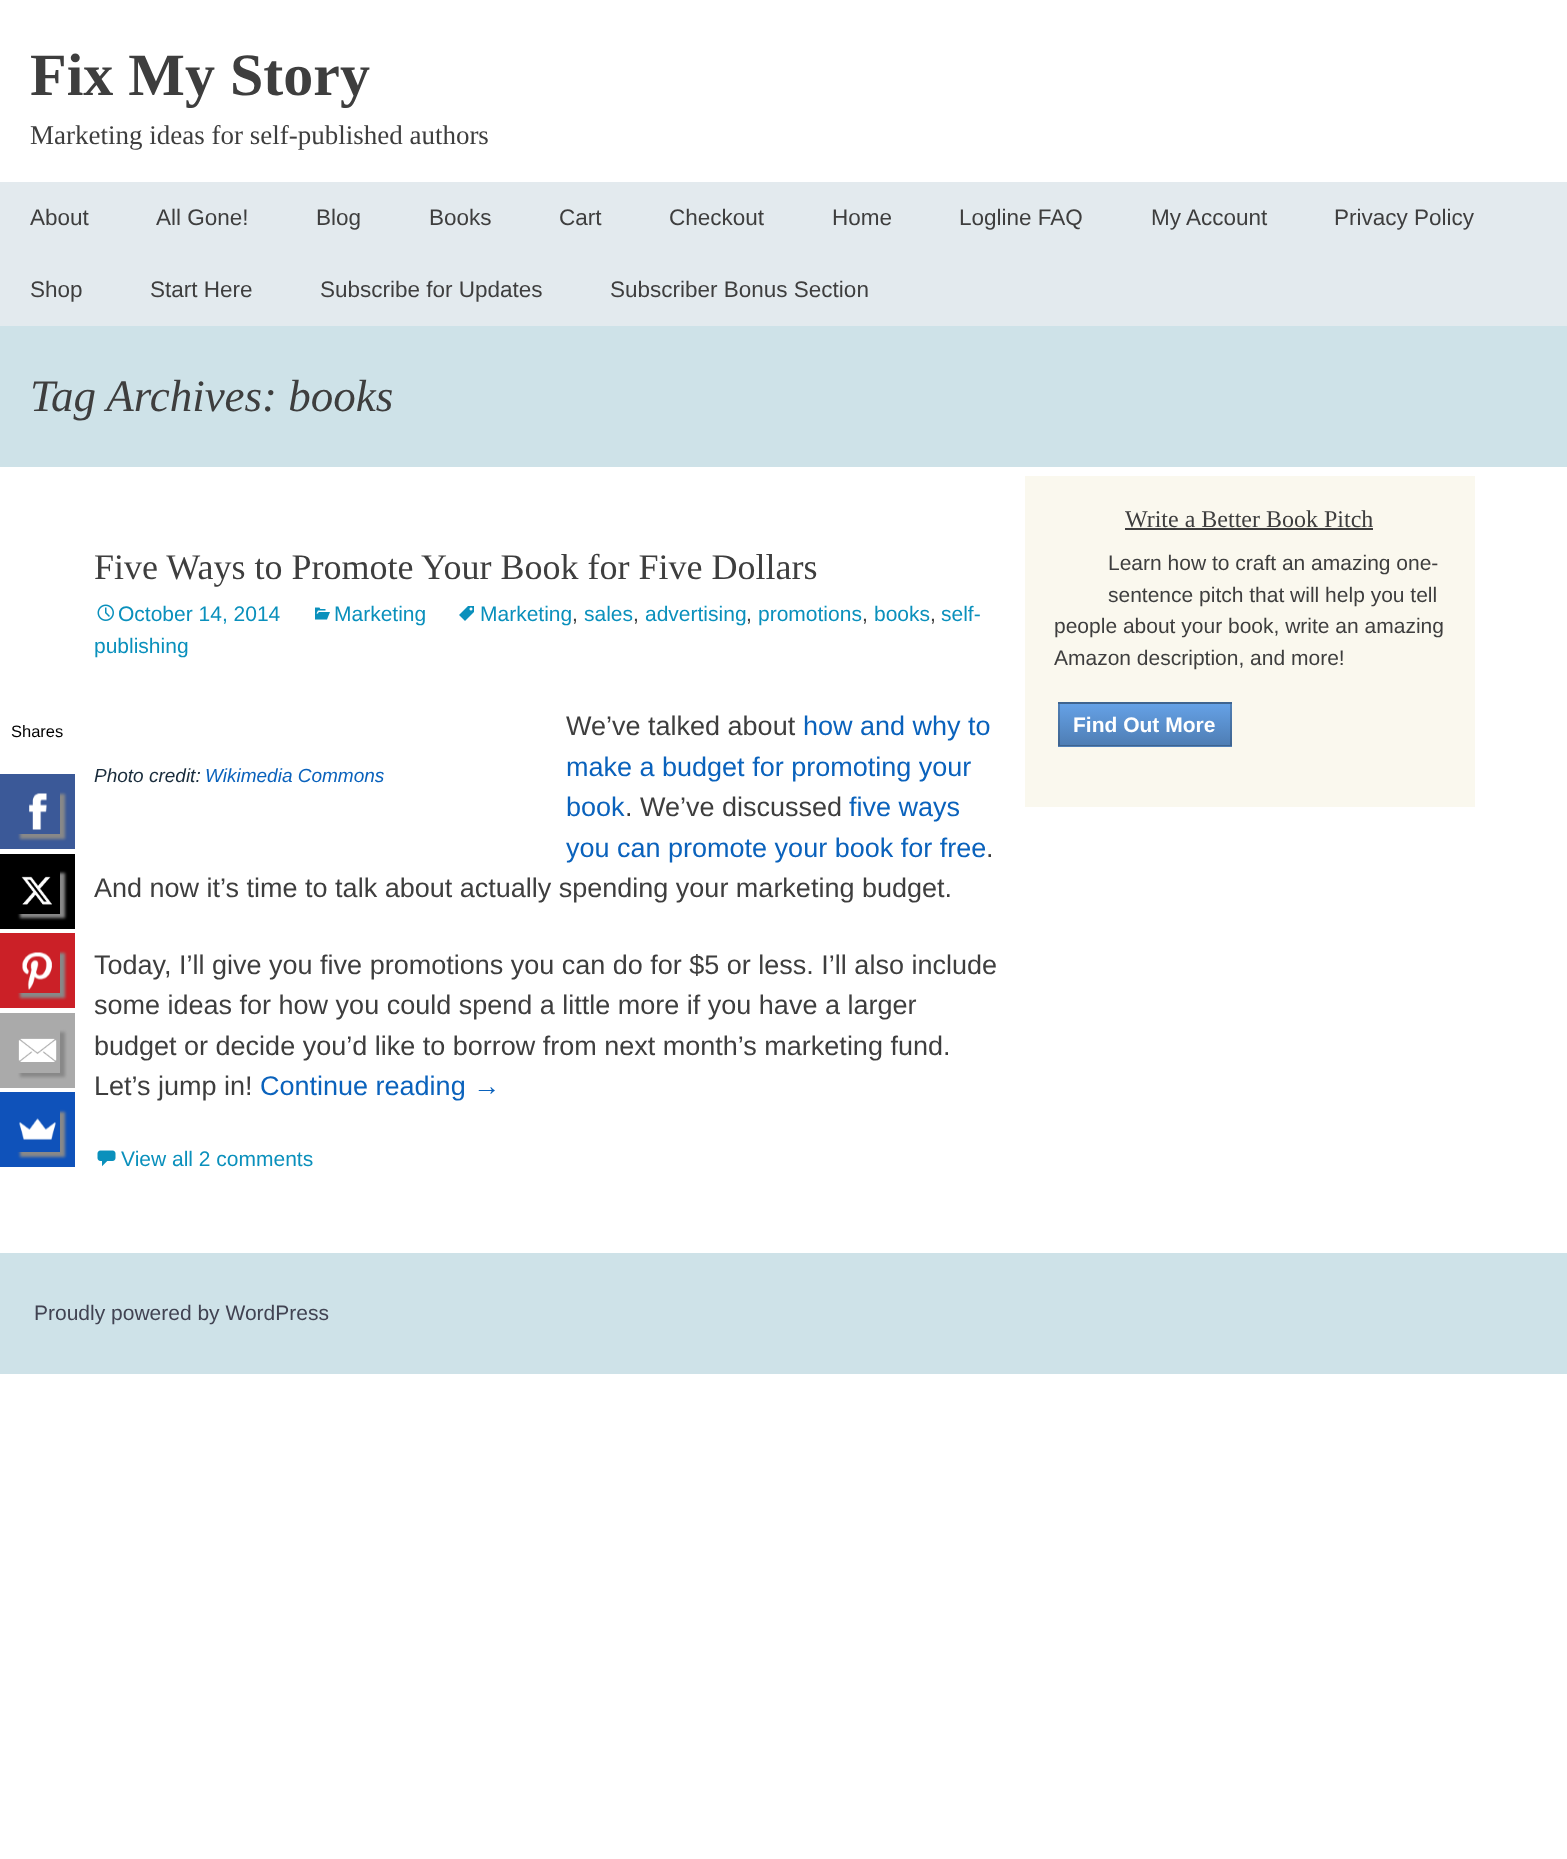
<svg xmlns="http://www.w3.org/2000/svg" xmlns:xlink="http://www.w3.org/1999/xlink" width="1567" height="1859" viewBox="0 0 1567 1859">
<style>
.cls-1{font:bold 60px Liberation Serif;fill:#3e3e3e}
.cls-2{font:27px Liberation Serif;fill:#3e3e3e}
.cls-3{font:22.5px Liberation Sans;fill:#3e3e3e}
.cls-4{font:italic 45px Liberation Serif;fill:#3e3e3e}
.cls-5{font:36px Liberation Serif;fill:#3e3e3e}
.cls-6{font:21px Liberation Sans;fill:#0a90bc}
.cls-7{font:21px Liberation Sans;fill:#3e3e3e}
.cls-8{font:27px Liberation Sans;fill:#3e3e3e}
.cls-9{font:27px Liberation Sans;fill:#0a62bc}
.cls-10{font:italic 19px Liberation Sans;fill:#192c3c}
.cls-11{font:italic 19px Liberation Sans;fill:#0a62bc}
.cls-12{font:24px Liberation Serif;fill:#3e3e3e}
.cls-13{font:bold 21px Liberation Sans;fill:#ffffff}
.cls-14{font:21px Liberation Sans;fill:#414352}
.cls-15{font:16.5px Liberation Sans;fill:#000000}
</style>
<defs>
<linearGradient id="g1" gradientUnits="userSpaceOnUse" x1="1145" y1="662" x2="1145" y2="704"><stop offset="0" stop-color="#65a1e6"/><stop offset="1" stop-color="#4e7db3"/></linearGradient>
<linearGradient id="g2" gradientUnits="userSpaceOnUse" x1="1145" y1="704" x2="1145" y2="746"><stop offset="0" stop-color="#65a1e6"/><stop offset="1" stop-color="#4e7db3"/></linearGradient>
<linearGradient id="g3" gradientUnits="userSpaceOnUse" x1="1145" y1="746" x2="1145" y2="788"><stop offset="0" stop-color="#65a1e6"/><stop offset="1" stop-color="#4e7db3"/></linearGradient>
<clipPath id="clip1"><path d="M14 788H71V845H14ZM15 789H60V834H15Z" clip-rule="evenodd"/></clipPath>
<clipPath id="clip2"><path d="M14 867H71V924H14ZM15 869H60V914H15Z" clip-rule="evenodd"/></clipPath>
<clipPath id="clip3"><path d="M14 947H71V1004H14ZM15 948H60V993H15Z" clip-rule="evenodd"/></clipPath>
<clipPath id="clip4"><path d="M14 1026H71V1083H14ZM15 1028H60V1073H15Z" clip-rule="evenodd"/></clipPath>
<clipPath id="clip5"><path d="M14 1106H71V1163H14ZM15 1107H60V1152H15Z" clip-rule="evenodd"/></clipPath>
</defs>
<rect width="100%" height="100%" fill="#ffffff"/>
<rect fill="#e3eaee" x="0" y="182" width="1567" height="144"/>
<rect fill="#cee2e8" x="0" y="326" width="1567" height="141"/>
<image xlink:href="image0.png" x="459" y="606" width="15" height="15"/>
<image xlink:href="image1.png" x="97" y="604" width="17" height="17"/>
<image xlink:href="image2.png" x="315" y="607" width="15" height="13"/>
<image xlink:href="image3.png" x="97" y="1150" width="19" height="17"/>
<rect fill="#faf8ee" x="1025" y="476" width="450" height="331"/>
<rect fill="#3e3e3e" x="1125" y="528" width="248" height="2"/>
<rect fill="url(#g1)" x="1058" y="702" width="174" height="2"/>
<rect fill="url(#g2)" x="1058" y="704" width="174" height="42"/>
<rect fill="url(#g3)" x="1058" y="746" width="174" height="1"/>
<rect fill="none" stroke="#000000" stroke-opacity="0.2" stroke-width="2" x="1059" y="703" width="172" height="43"/>
<rect fill="#cee2e8" x="0" y="1253" width="1567" height="121"/>
<rect fill="#3b5998" x="0" y="774" width="75" height="75"/>
<g clip-path="url(#clip1)">
<rect fill="#888888" filter="blur(1.5px)" x="20" y="794" width="45" height="45"/>
</g>
<image xlink:href="image4.png" x="29" y="793" width="18" height="37"/>
<rect fill="#000000" x="0" y="854" width="75" height="75"/>
<g clip-path="url(#clip2)">
<rect fill="#888888" filter="blur(1.5px)" x="20" y="873" width="45" height="45"/>
</g>
<image xlink:href="image5.png" x="21" y="876" width="31" height="29"/>
<rect fill="#cb2027" x="0" y="933" width="75" height="75"/>
<g clip-path="url(#clip3)">
<rect fill="#888888" filter="blur(1.5px)" x="20" y="953" width="45" height="45"/>
</g>
<image xlink:href="image6.png" x="22" y="952" width="30" height="38"/>
<rect fill="#aaaaaa" x="0" y="1013" width="75" height="75"/>
<g clip-path="url(#clip4)">
<rect fill="#888888" filter="blur(1.5px)" x="20" y="1032" width="45" height="45"/>
</g>
<image xlink:href="image7.png" x="18" y="1038" width="39" height="24"/>
<rect fill="#0f52ba" x="0" y="1092" width="75" height="75"/>
<g clip-path="url(#clip5)">
<rect fill="#888888" filter="blur(1.5px)" x="20" y="1112" width="45" height="45"/>
</g>
<image xlink:href="image8.png" x="19" y="1118" width="37" height="22"/>
<text class="cls-1" x="30" y="95">Fix My Story</text>
<text class="cls-2" x="30" y="144">Marketing ideas for self-published authors</text>
<text class="cls-3" x="30" y="225">About</text>
<text class="cls-3" x="156" y="225">All Gone!</text>
<text class="cls-3" x="316" y="225">Blog</text>
<text class="cls-3" x="429" y="225">Books</text>
<text class="cls-3" x="559" y="225">Cart</text>
<text class="cls-3" x="669" y="225">Checkout</text>
<text class="cls-3" x="832" y="225">Home</text>
<text class="cls-3" x="959" y="225">Logline FAQ</text>
<text class="cls-3" x="1151" y="225">My Account</text>
<text class="cls-3" x="1334" y="225">Privacy Policy</text>
<text class="cls-3" x="30" y="297">Shop</text>
<text class="cls-3" x="150" y="297">Start Here</text>
<text class="cls-3" x="320" y="297">Subscribe for Updates</text>
<text class="cls-3" x="610" y="297">Subscriber Bonus Section</text>
<text class="cls-4" x="30" y="411">Tag Archives: books</text>
<text class="cls-5" x="94" y="579">Five Ways to Promote Your Book for Five Dollars</text>
<text class="cls-6" x="480" y="621">Marketing</text>
<text class="cls-7" x="572" y="621">,</text>
<text class="cls-6" x="584" y="621">sales</text>
<text class="cls-7" x="633" y="621">,</text>
<text class="cls-6" x="645" y="621">advertising</text>
<text class="cls-7" x="746" y="621">,</text>
<text class="cls-6" x="758" y="621">promotions</text>
<text class="cls-7" x="862" y="621">,</text>
<text class="cls-6" x="874" y="621">books</text>
<text class="cls-7" x="930" y="621">,</text>
<text class="cls-6" x="941" y="621">self-</text>
<text class="cls-6" x="94" y="653">publishing</text>
<text class="cls-6" x="118" y="621">October 14, 2014</text>
<text class="cls-6" x="334" y="621">Marketing</text>
<text class="cls-8" x="566" y="735">We’ve talked about</text>
<text class="cls-9" x="803" y="735">how and why to</text>
<text class="cls-9"><tspan x="566" y="776">make a budget for promoting your</tspan><tspan x="566" y="816">book</tspan></text>
<text class="cls-8" x="625" y="816">. We’ve discussed</text>
<text class="cls-9" x="849" y="816">five ways</text>
<text class="cls-9" x="566" y="857">you can promote your book for free</text>
<text class="cls-8" x="986" y="857">.</text>
<text class="cls-8" x="94" y="897">And now it’s time to talk about actually spending your marketing budget.</text>
<text class="cls-10" x="94" y="782">Photo credit:</text>
<text class="cls-11" x="205" y="782">Wikimedia Commons</text>
<text class="cls-8"><tspan x="94" y="974">Today, I’ll give you five promotions you can do for $5 or less. I’ll also include</tspan><tspan x="94" y="1014">some ideas for how you could spend a little more if you have a larger</tspan><tspan x="94" y="1055">budget or decide you’d like to borrow from next month’s marketing fund.</tspan><tspan x="94" y="1095">Let’s jump in!</tspan></text>
<text class="cls-9" x="260" y="1095">Continue reading →</text>
<text class="cls-6" x="121" y="1166">View all 2 comments</text>
<text class="cls-12" x="1125" y="527">Write a Better Book Pitch</text>
<text class="cls-7"><tspan x="1108" y="570">Learn how to craft an amazing one-</tspan><tspan x="1108" y="602">sentence pitch that will help you tell</tspan></text>
<text class="cls-7"><tspan x="1054" y="633">people about your book, write an amazing</tspan><tspan x="1054" y="665">Amazon description, and more!</tspan></text>
<text class="cls-13" x="1073" y="732">Find Out More</text>
<text class="cls-14" x="34" y="1320">Proudly powered by WordPress</text>
<text class="cls-15" x="11" y="737">Shares</text>
</svg>
